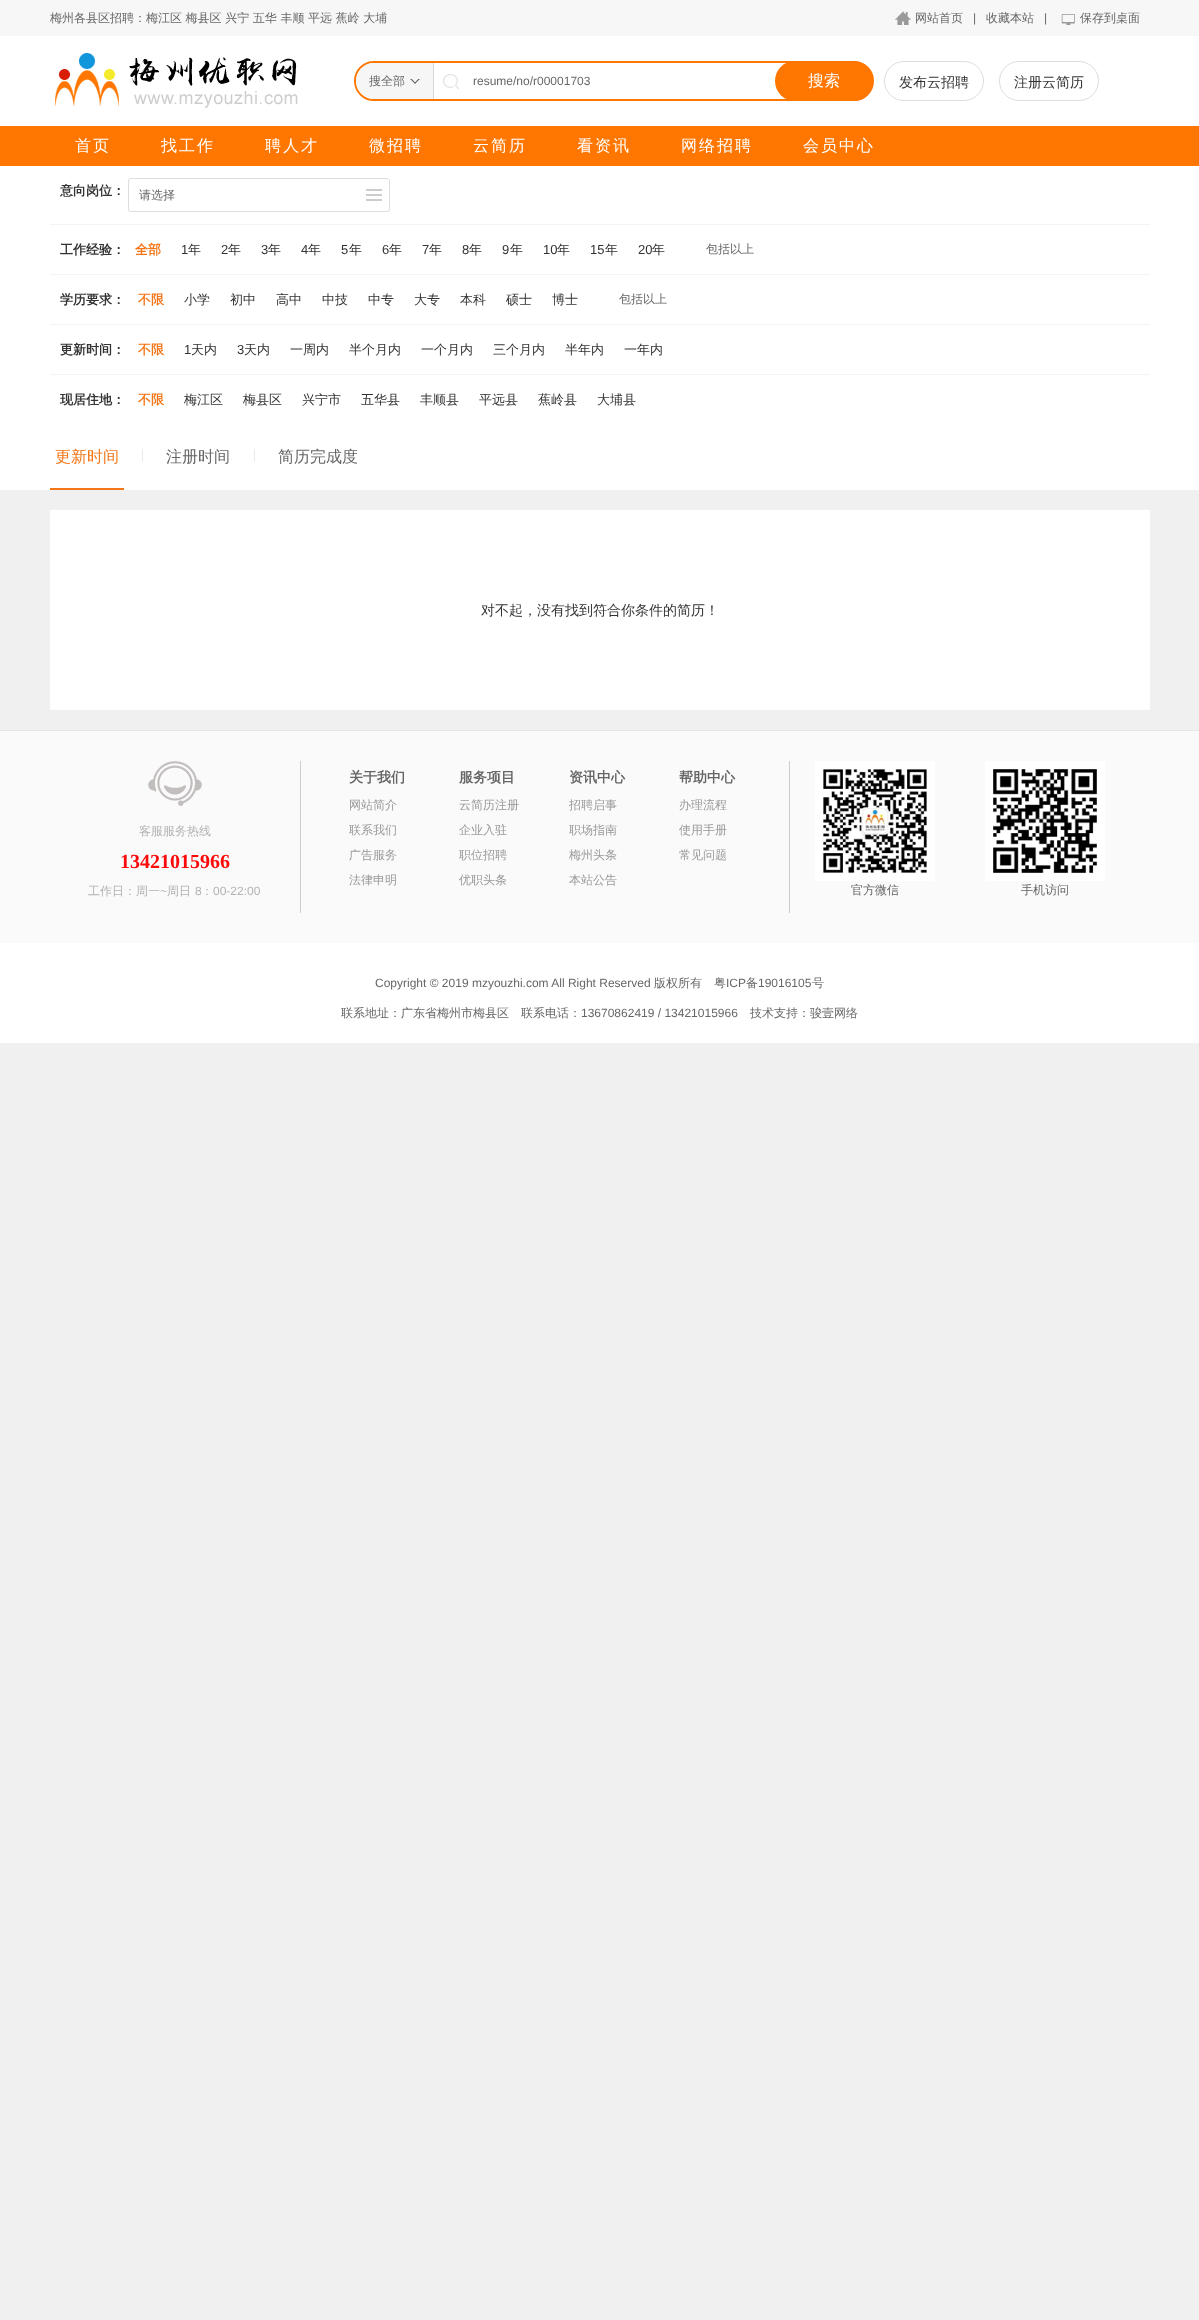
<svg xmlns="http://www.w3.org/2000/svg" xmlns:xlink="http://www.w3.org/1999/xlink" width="1199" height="2320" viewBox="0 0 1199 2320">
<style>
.cls-1{font:500 12px WenQuanYi Zen Hei;fill:#666666}
.cls-2{font:12px Liberation Sans;fill:#666666}
.cls-3{font:500 16px WenQuanYi Zen Hei;fill:#ffffff}
.cls-4{font:500 14px WenQuanYi Zen Hei;fill:#333333}
.cls-5{font:500 16px WenQuanYi Zen Hei;letter-spacing:2px;fill:#ffffff}
.cls-6{font:bold 13px WenQuanYi Zen Hei;fill:#333333}
.cls-7{font:bold 13px WenQuanYi Zen Hei;fill:#f47517}
.cls-8{font:13px Liberation Sans;fill:#333333}
.cls-9{font:500 13px WenQuanYi Zen Hei;fill:#333333}
.cls-10{font:500 16px WenQuanYi Zen Hei;fill:#f47517}
.cls-11{font:500 16px WenQuanYi Zen Hei;fill:#666666}
.cls-12{font:500 12px WenQuanYi Zen Hei;fill:#b3b1b1}
.cls-13{font:bold 20px Liberation Serif;fill:#fd0909}
.cls-14{font:12px Liberation Sans;fill:#b3b1b1}
.cls-15{font:bold 14px WenQuanYi Zen Hei;fill:#666666}
.cls-16{font:500 12px WenQuanYi Zen Hei;fill:#999999}
</style>
<defs>
<clipPath id="clip1"><rect x="349" y="818" width="110" height="25"/></clipPath>
<clipPath id="clip2"><rect x="459" y="843" width="110" height="25"/></clipPath>
<clipPath id="clip3"><rect x="569" y="793" width="110" height="25"/></clipPath>
<clipPath id="clip4"><rect x="569" y="818" width="110" height="25"/></clipPath>
<clipPath id="clip5"><rect x="569" y="843" width="110" height="25"/></clipPath>
</defs>
<rect width="100%" height="100%" fill="#f0f0f0"/>
<rect fill="#f7f7f7" x="0" y="0" width="1199" height="36"/>
<image xlink:href="image0.png" x="895" y="11" width="16" height="14"/>
<image xlink:href="image1.png" x="1061" y="14" width="14" height="11"/>
<rect fill="#ffffff" x="0" y="36" width="1199" height="90"/>
<image xlink:href="image2.png" x="55" y="53" width="243" height="55"/>
<rect fill="none" stroke="#ff7700" stroke-width="2" x="355" y="62" width="518" height="38" rx="19"/>
<path fill="#f6f6f6" d="M374 63H434V99H374C364 99 356 91 356 81C356 71 364 63 374 63Z"/>
<rect fill="#d6d6d6" x="433" y="63" width="1" height="36"/>
<image xlink:href="image3.png" x="410" y="79" width="10" height="5"/>
<image xlink:href="image4.png" x="443" y="74" width="16" height="15"/>
<rect fill="#ff7700" x="775" y="61" width="98" height="40" rx="20"/>
<rect fill="none" stroke="#dddddd" x="884.5" y="61.5" width="99" height="39" rx="19.5"/>
<rect fill="none" stroke="#dddddd" x="999.5" y="61.5" width="99" height="39" rx="19.5"/>
<rect fill="#ff7700" x="0" y="126" width="1199" height="40"/>
<rect fill="#ffffff" x="0" y="166" width="1199" height="324"/>
<rect fill="#f4f4f4" x="50" y="224" width="1100" height="1"/>
<image xlink:href="image5.png" x="366" y="189" width="16" height="12"/>
<rect fill="none" stroke="#dddddd" x="128.5" y="178.5" width="261" height="33" rx="2.5"/>
<rect fill="#f4f4f4" x="50" y="274" width="1100" height="1"/>
<rect fill="#f4f4f4" x="50" y="324" width="1100" height="1"/>
<rect fill="#f4f4f4" x="50" y="374" width="1100" height="1"/>
<rect fill="#f47517" x="50" y="488" width="74" height="2"/>
<rect fill="#ece9ec" x="142" y="449" width="1" height="13"/>
<rect fill="#ece9ec" x="254" y="449" width="1" height="13"/>
<rect fill="#ffffff" x="50" y="510" width="1100" height="200"/>
<rect fill="#fafafa" x="0" y="731" width="1199" height="212"/>
<rect fill="#e6e6e6" x="0" y="730" width="1199" height="1"/>
<image xlink:href="image6.png" x="148" y="761" width="54" height="45"/>
<rect fill="#cdcdcd" x="789" y="761" width="1" height="152"/>
<rect fill="#cdcdcd" x="300" y="761" width="1" height="152"/>
<image xlink:href="image7.png" x="815" y="761" width="120" height="120"/>
<image xlink:href="image8.png" x="985" y="761" width="120" height="120"/>
<rect fill="#ffffff" x="0" y="943" width="1199" height="100"/>
<text class="cls-1" x="50" y="22">梅州各县区招聘：梅江区 梅县区 兴宁 五华 丰顺 平远 蕉岭 大埔</text>
<text class="cls-1" x="915" y="22">网站首页</text>
<text class="cls-2" x="973" y="22">|</text>
<text class="cls-1" x="986" y="22">收藏本站</text>
<text class="cls-2" x="1044" y="22">|</text>
<text class="cls-1" x="1080" y="22">保存到桌面</text>
<text class="cls-1" x="369" y="85">搜全部</text>
<text class="cls-2" x="473" y="85">resume/no/r00001703</text>
<text class="cls-3" x="808" y="86">搜索</text>
<text class="cls-4" x="899" y="87">发布云招聘</text>
<text class="cls-4" x="1014" y="87">注册云简历</text>
<text class="cls-5" x="75" y="151">首页</text>
<text class="cls-5" x="161" y="151">找工作</text>
<text class="cls-5" x="265" y="151">聘人才</text>
<text class="cls-5" x="369" y="151">微招聘</text>
<text class="cls-5" x="473" y="151">云简历</text>
<text class="cls-5" x="577" y="151">看资讯</text>
<text class="cls-5" x="681" y="151">网络招聘</text>
<text class="cls-5" x="803" y="151">会员中心</text>
<text class="cls-6" x="60" y="195">意向岗位：</text>
<text class="cls-1" x="139" y="199">请选择</text>
<text class="cls-6" x="60" y="254">工作经验：</text>
<text class="cls-7" x="135" y="254">全部</text>
<text class="cls-8" x="181" y="254">1</text>
<text class="cls-9" x="188" y="254">年</text>
<text class="cls-8" x="221" y="254">2</text>
<text class="cls-9" x="228" y="254">年</text>
<text class="cls-8" x="261" y="254">3</text>
<text class="cls-9" x="268" y="254">年</text>
<text class="cls-8" x="301" y="254">4</text>
<text class="cls-9" x="308" y="254">年</text>
<text class="cls-8" x="341" y="254">5</text>
<text class="cls-9" x="349" y="254">年</text>
<text class="cls-8" x="382" y="254">6</text>
<text class="cls-9" x="389" y="254">年</text>
<text class="cls-8" x="422" y="254">7</text>
<text class="cls-9" x="429" y="254">年</text>
<text class="cls-8" x="462" y="254">8</text>
<text class="cls-9" x="469" y="254">年</text>
<text class="cls-8" x="502" y="254">9</text>
<text class="cls-9" x="510" y="254">年</text>
<text class="cls-8" x="543" y="254">10</text>
<text class="cls-9" x="557" y="254">年</text>
<text class="cls-8" x="590" y="254">15</text>
<text class="cls-9" x="605" y="254">年</text>
<text class="cls-8" x="638" y="254">20</text>
<text class="cls-9" x="652" y="254">年</text>
<text class="cls-1" x="706" y="253">包括以上</text>
<text class="cls-6" x="60" y="304">学历要求：</text>
<text class="cls-7" x="138" y="304">不限</text>
<text class="cls-9" x="184" y="304">小学</text>
<text class="cls-9" x="230" y="304">初中</text>
<text class="cls-9" x="276" y="304">高中</text>
<text class="cls-9" x="322" y="304">中技</text>
<text class="cls-9" x="368" y="304">中专</text>
<text class="cls-9" x="414" y="304">大专</text>
<text class="cls-9" x="460" y="304">本科</text>
<text class="cls-9" x="506" y="304">硕士</text>
<text class="cls-9" x="552" y="304">博士</text>
<text class="cls-1" x="619" y="303">包括以上</text>
<text class="cls-6" x="60" y="354">更新时间：</text>
<text class="cls-7" x="138" y="354">不限</text>
<text class="cls-8" x="184" y="354">1</text>
<text class="cls-9" x="191" y="354">天内</text>
<text class="cls-8" x="237" y="354">3</text>
<text class="cls-9" x="244" y="354">天内</text>
<text class="cls-9" x="290" y="354">一周内</text>
<text class="cls-9" x="349" y="354">半个月内</text>
<text class="cls-9" x="421" y="354">一个月内</text>
<text class="cls-9" x="493" y="354">三个月内</text>
<text class="cls-9" x="565" y="354">半年内</text>
<text class="cls-9" x="624" y="354">一年内</text>
<text class="cls-6" x="60" y="404">现居住地：</text>
<text class="cls-7" x="138" y="404">不限</text>
<text class="cls-9" x="184" y="404">梅江区</text>
<text class="cls-9" x="243" y="404">梅县区</text>
<text class="cls-9" x="302" y="404">兴宁市</text>
<text class="cls-9" x="361" y="404">五华县</text>
<text class="cls-9" x="420" y="404">丰顺县</text>
<text class="cls-9" x="479" y="404">平远县</text>
<text class="cls-9" x="538" y="404">蕉岭县</text>
<text class="cls-9" x="597" y="404">大埔县</text>
<text class="cls-10" x="55" y="462">更新时间</text>
<text class="cls-11" x="166" y="462">注册时间</text>
<text class="cls-11" x="278" y="462">简历完成度</text>
<text class="cls-4" x="481" y="615">对不起，没有找到符合你条件的简历！</text>
<text class="cls-12" x="139" y="835">客服服务热线</text>
<text class="cls-13" x="120" y="868">13421015966</text>
<text class="cls-12" x="88" y="895">工作日：周一</text>
<text class="cls-14" x="160" y="895">~</text>
<text class="cls-12" x="167" y="895">周日</text>
<text class="cls-14" x="195" y="895">8</text>
<text class="cls-12" x="201" y="895">：</text>
<text class="cls-14" x="213" y="895">00-22:00</text>
<text class="cls-15" x="349" y="782">关于我们</text>
<text class="cls-16" x="349" y="809">网站简介</text>
<g clip-path="url(#clip1)">
<text class="cls-16" x="349" y="834">联系我们</text>
</g>
<text class="cls-16" x="349" y="859">广告服务</text>
<text class="cls-16" x="349" y="884">法律申明</text>
<text class="cls-15" x="459" y="782">服务项目</text>
<text class="cls-16" x="459" y="809">云简历注册</text>
<text class="cls-16" x="459" y="834">企业入驻</text>
<g clip-path="url(#clip2)">
<text class="cls-16" x="459" y="859">职位招聘</text>
</g>
<text class="cls-16" x="459" y="884">优职头条</text>
<text class="cls-15" x="569" y="782">资讯中心</text>
<g clip-path="url(#clip3)">
<text class="cls-16" x="569" y="809">招聘启事</text>
</g>
<g clip-path="url(#clip4)">
<text class="cls-16" x="569" y="834">职场指南</text>
</g>
<g clip-path="url(#clip5)">
<text class="cls-16" x="569" y="859">梅州头条</text>
</g>
<text class="cls-16" x="569" y="884">本站公告</text>
<text class="cls-15" x="679" y="782">帮助中心</text>
<text class="cls-16" x="679" y="809">办理流程</text>
<text class="cls-16" x="679" y="834">使用手册</text>
<text class="cls-16" x="679" y="859">常见问题</text>
<text class="cls-1" x="851" y="894">官方微信</text>
<text class="cls-1" x="1021" y="894">手机访问</text>
<text class="cls-2" x="375" y="987">Copyright © 2019 mzyouzhi.com All Right Reserved</text>
<text class="cls-1" x="654" y="987">版权所有</text>
<text class="cls-1" x="714" y="987">粤</text>
<text class="cls-2" x="726" y="987">ICP</text>
<text class="cls-1" x="746" y="987">备</text>
<text class="cls-2" x="758" y="987">19016105</text>
<text class="cls-1" x="812" y="987">号</text>
<text class="cls-1" x="341" y="1017">联系地址：广东省梅州市梅县区　联系电话：</text>
<text class="cls-2" x="581" y="1017">13670862419 / 13421015966</text>
<text class="cls-1" x="750" y="1017">技术支持：骏壹网络</text>
</svg>
